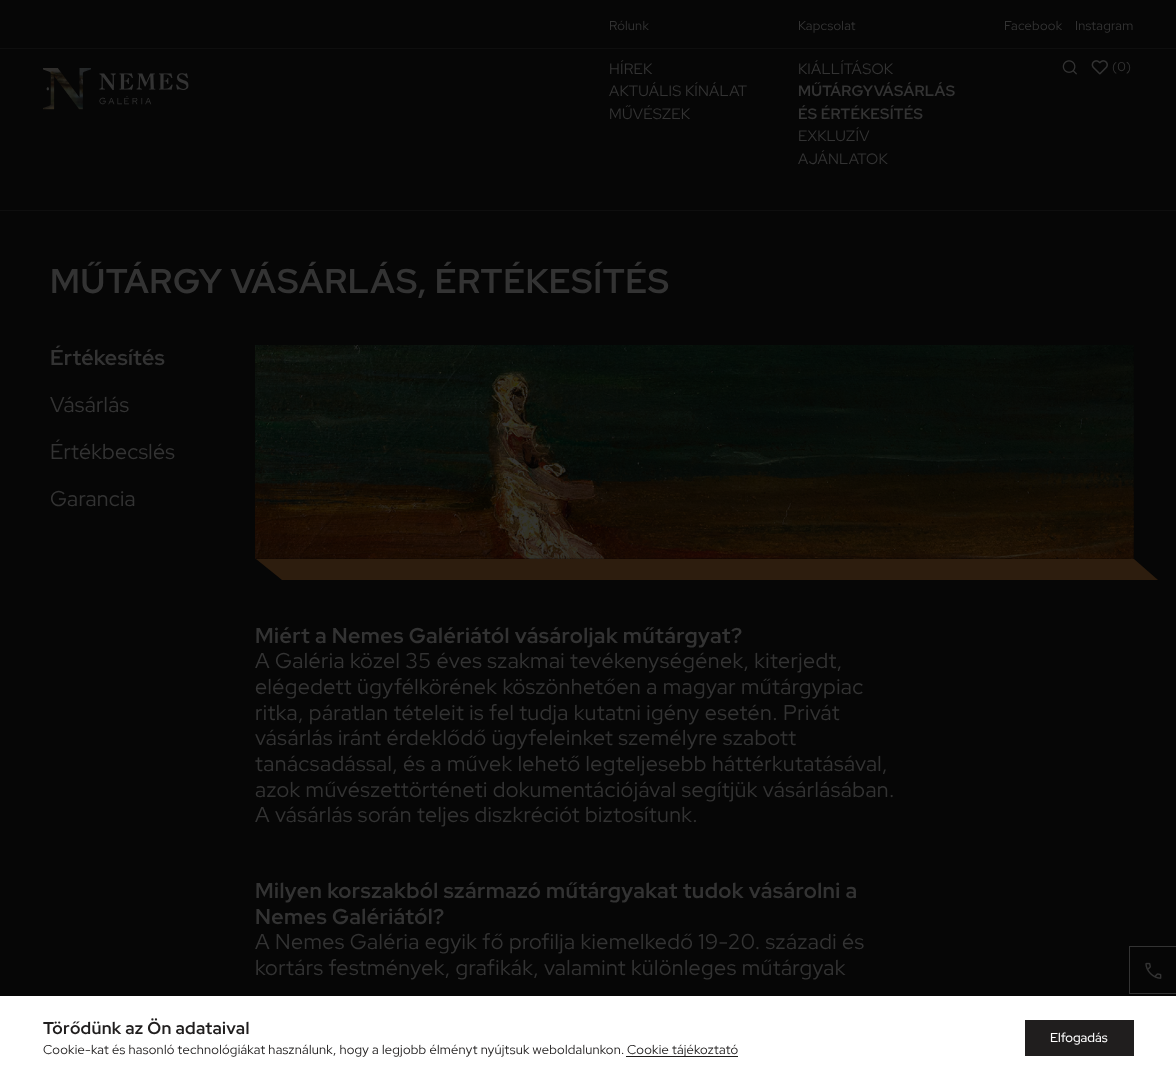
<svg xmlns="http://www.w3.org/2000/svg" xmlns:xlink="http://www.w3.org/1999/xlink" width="1176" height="1079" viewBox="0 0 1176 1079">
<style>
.cls-1{font:12.85px Red Hat Display;letter-spacing:0.25px;fill:#333333}
.cls-2{font:15px Red Hat Display;letter-spacing:0.25px;fill:#333333}
.cls-3{font:bold 15px Red Hat Display;letter-spacing:0.25px;fill:#333333}
.cls-4{font:bold 34.25px Red Hat Display;letter-spacing:0.7px;fill:#333333}
.cls-5{font:bold 21.4px Red Hat Display;letter-spacing:0.25px;fill:#333333}
.cls-6{font:21.4px Red Hat Display;letter-spacing:0.25px;fill:#333333}
.cls-7{font:bold 21.4px Red Hat Display;letter-spacing:0.43px;fill:#333333}
.cls-8{font:21.4px Red Hat Display;letter-spacing:0.43px;fill:#333333}
.cls-9{font:bold 17.1px Red Hat Display;letter-spacing:0.3px;fill:#201e1e}
.cls-10{font:12.85px Red Hat Display;letter-spacing:0.25px;fill:#201e1e}
.cls-11{font:500 12.85px Red Hat Display;fill:#ffffff}
</style>
<rect width="100%" height="100%" fill="#060606"/>
<rect fill="#0e0e0e" x="0" y="48" width="1176" height="1"/>
<rect fill="#0e0e0e" x="0" y="210" width="1176" height="1"/>
<image xlink:href="image0.png" x="43" y="68" width="146" height="42"/>
<image xlink:href="image1.png" x="1062" y="60" width="15" height="15"/>
<image xlink:href="image2.png" x="1091" y="60" width="17" height="15"/>
<image xlink:href="image3.png" x="255" y="345" width="879" height="214"/>
<path fill="#2d1d0e" d="M282 580H1158L1134 559H256Z"/>
<rect fill="#333333" x="1129" y="946" width="47" height="1"/>
<rect fill="#333333" x="1129" y="993" width="47" height="1"/>
<rect fill="#333333" x="1129" y="946" width="1" height="48"/>
<image xlink:href="image4.png" x="1145" y="962" width="17" height="17"/>
<rect fill="#ffffff" x="0" y="996" width="1176" height="83"/>
<rect fill="#201e1e" x="626" y="1056" width="112" height="1"/>
<rect fill="#201e1e" x="1025" y="1020" width="109" height="36"/>
<text class="cls-1" x="609" y="30">Rólunk</text>
<text class="cls-1" x="798" y="30">Kapcsolat</text>
<text class="cls-1" x="1004" y="30">Facebook</text>
<text class="cls-1" x="1075" y="30">Instagram</text>
<text class="cls-2"><tspan x="609" y="74">HÍREK</tspan><tspan x="609" y="96">AKTUÁLIS KÍNÁLAT</tspan><tspan x="609" y="119">MŰVÉSZEK</tspan></text>
<text class="cls-2" x="798" y="74">KIÁLLÍTÁSOK</text>
<text class="cls-3"><tspan x="798" y="96">MŰTÁRGYVÁSÁRLÁS</tspan><tspan x="798" y="119">ÉS ÉRTÉKESÍTÉS</tspan></text>
<text class="cls-2"><tspan x="798" y="141">EXKLUZÍV</tspan><tspan x="798" y="164">AJÁNLATOK</tspan></text>
<text class="cls-1" x="1112" y="71">(0)</text>
<text class="cls-4" x="50" y="293">MŰTÁRGY VÁSÁRLÁS, ÉRTÉKESÍTÉS</text>
<text class="cls-5" x="50" y="365">Értékesítés</text>
<text class="cls-6" x="50" y="412">Vásárlás</text>
<text class="cls-6" x="50" y="459">Értékbecslés</text>
<text class="cls-6" x="50" y="506">Garancia</text>
<text class="cls-7" x="255" y="643">Miért a Nemes Galériától vásároljak műtárgyat?</text>
<text class="cls-8"><tspan x="255" y="668">A Galéria közel 35 éves szakmai tevékenységének, kiterjedt,</tspan><tspan x="255" y="694">elégedett ügyfélkörének köszönhetően a magyar műtárgypiac</tspan><tspan x="255" y="720">ritka, páratlan tételeit is fel tudja kutatni igény esetén. Privát</tspan><tspan x="255" y="745">vásárlás iránt érdeklődő ügyfeleinket személyre szabott</tspan><tspan x="255" y="771">tanácsadással, és a művek lehető legteljesebb háttérkutatásával,</tspan><tspan x="255" y="797">azok művészettörténeti dokumentációjával segítjük vásárlásában.</tspan><tspan x="255" y="822">A vásárlás során teljes diszkréciót biztosítunk.</tspan></text>
<text class="cls-7"><tspan x="255" y="898">Milyen korszakból származó műtárgyakat tudok vásárolni a</tspan><tspan x="255" y="924">Nemes Galériától?</tspan></text>
<text class="cls-8"><tspan x="255" y="949">A Nemes Galéria egyik fő profilja kiemelkedő 19-20. századi és</tspan><tspan x="255" y="975">kortárs festmények, grafikák, valamint különleges műtárgyak</tspan></text>
<text class="cls-9" x="43" y="1034">Törődünk az Ön adataival</text>
<text class="cls-10" x="43" y="1054">Cookie-kat és hasonló technológiákat használunk, hogy a legjobb élményt nyújtsuk weboldalunkon.</text>
<text class="cls-10" x="627" y="1054">Cookie tájékoztató</text>
<text class="cls-11" x="1050" y="1042">Elfogadás</text>
</svg>
